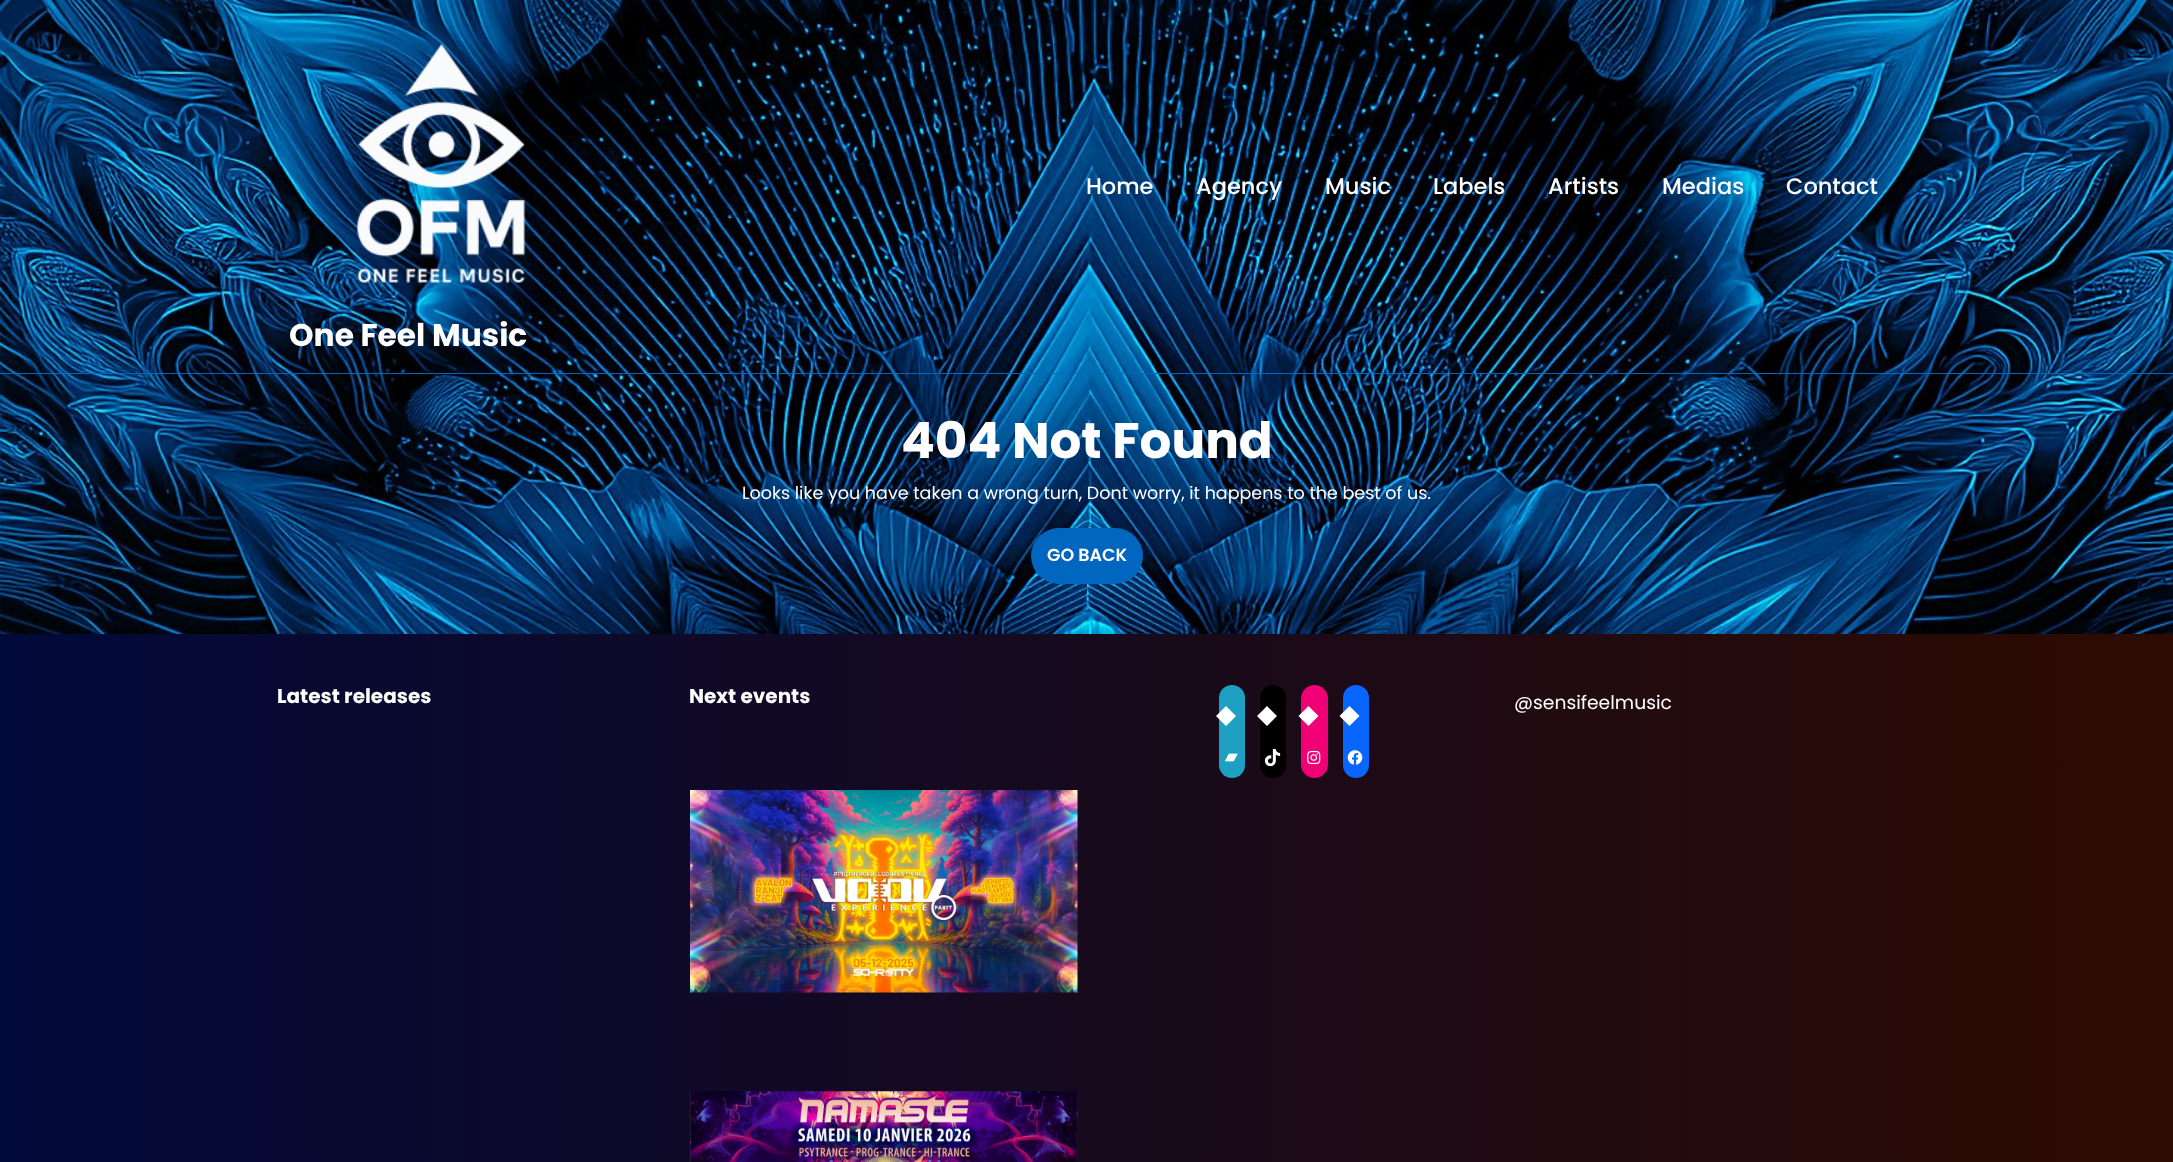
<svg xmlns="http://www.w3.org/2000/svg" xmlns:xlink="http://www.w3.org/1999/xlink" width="2173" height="1162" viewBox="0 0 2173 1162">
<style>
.cls-1{font:500 22.5px Poppins;fill:#ffffff}
.cls-2{font:bold 31.25px Poppins;fill:#ffffff}
.cls-3{font:bold 50px Poppins;fill:#ffffff}
.cls-4{font:17.5px Poppins;fill:#ffffff}
.cls-5{font:600 17.5px Poppins;fill:#ffffff}
.cls-6{font:bold 20px Poppins;fill:#ffffff}
.cls-7{font:18.75px Poppins;fill:#ffffff}
</style>
<defs>
<linearGradient id="g1" gradientUnits="userSpaceOnUse" x1="0" y1="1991" x2="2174" y2="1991"><stop offset="0" stop-color="#01093a"/><stop offset="1" stop-color="#2d0b00"/></linearGradient>
</defs>
<rect width="100%" height="100%" fill="#ffffff"/>
<image xlink:href="image0.png" x="0" y="0" width="2173" height="634"/>
<rect fill="#0066bf" x="0" y="373" width="2173" height="1"/>
<image xlink:href="image1.png" x="356" y="43" width="170" height="240"/>
<rect fill="#0066bf" x="1031" y="528" width="112" height="56" rx="28"/>
<rect fill="url(#g1)" x="0" y="634" width="2173" height="528"/>
<image xlink:href="image2.png" x="690" y="790" width="388" height="203"/>
<image xlink:href="image3.png" x="690" y="1091" width="388" height="71"/>
<rect fill="#1ea0c3" x="1219" y="685" width="26" height="93" rx="13"/>
<rect fill="#000000" x="1260" y="685" width="26" height="93" rx="13"/>
<path fill="#ffffff" d="M1216 716L1226 706L1236 716L1226 726ZM1257 716L1267 706L1277 716L1267 726Z"/>
<image xlink:href="image4.png" x="1224" y="753" width="14" height="9"/>
<image xlink:href="image5.png" x="1264" y="749" width="17" height="17"/>
<rect fill="#f00075" x="1301" y="685" width="27" height="93" rx="13.5"/>
<rect fill="#0866ff" x="1343" y="685" width="26" height="93" rx="13"/>
<path fill="#ffffff" d="M1298.5 716L1308.5 706L1318.5 716L1308.5 726ZM1339.5 716L1349.5 706L1359.5 716L1349.5 726Z"/>
<image xlink:href="image6.png" x="1307" y="750" width="14" height="15"/>
<image xlink:href="image7.png" x="1347" y="750" width="16" height="15"/>
<text class="cls-1" x="1086" y="194">Home</text>
<text class="cls-1" x="1196" y="194">Agency</text>
<text class="cls-1" x="1325" y="194">Music</text>
<text class="cls-1" x="1433" y="194">Labels</text>
<text class="cls-1" x="1548" y="194">Artists</text>
<text class="cls-1" x="1662" y="194">Medias</text>
<text class="cls-1" x="1786" y="194">Contact</text>
<text class="cls-2" x="289" y="346">One Feel Music</text>
<text class="cls-3" x="901" y="458">404 Not Found</text>
<text class="cls-4" x="742" y="499">Looks like you have taken a wrong turn, Dont worry, it happens to the best of us.</text>
<text class="cls-5" x="1047" y="561">GO BACK</text>
<text class="cls-6" x="277" y="703">Latest releases</text>
<text class="cls-6" x="689" y="703">Next events</text>
<text class="cls-7" x="1514" y="709">@sensifeelmusic</text>
</svg>
